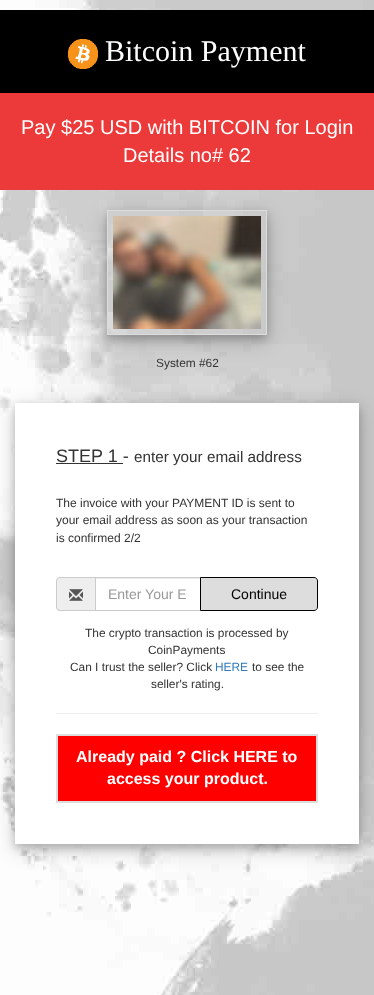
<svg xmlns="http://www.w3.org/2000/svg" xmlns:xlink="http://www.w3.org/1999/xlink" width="374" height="995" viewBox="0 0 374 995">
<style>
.cls-1{font:30px Liberation Serif;fill:#ffffff}
.cls-2{font:20px Liberation Sans;fill:#ffffff}
.cls-3{font:11.9px Liberation Sans;fill:#333333}
.cls-4{font:18px Liberation Sans;fill:#333333}
.cls-5{font:15.25px Liberation Sans;fill:#333333}
.cls-6{font:12px Liberation Sans;fill:#333333}
.cls-7{font:14px Liberation Sans;fill:#999999}
.cls-8{font:14px Liberation Sans;fill:#000000}
.cls-9{font:11.9px Liberation Sans;fill:#337ab7}
.cls-10{font:bold 16px Liberation Sans;fill:#ffffff}
</style>
<defs>
<clipPath id="clip1"><path d="M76 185H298V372H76ZM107 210H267V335H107Z" clip-rule="evenodd"/></clipPath>
<clipPath id="clip2"><path d="M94 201H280V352H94ZM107 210H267V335H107Z" clip-rule="evenodd"/></clipPath>
</defs>
<rect width="100%" height="100%" fill="#ffffff"/>
<image xlink:href="image0.png" x="0" y="0" width="374" height="995"/>
<rect fill="#000000" x="0" y="10" width="374" height="83"/>
<image xlink:href="image1.png" x="68" y="39" width="30" height="30"/>
<rect fill="#ec3939" x="0" y="93" width="374" height="97"/>
<g clip-path="url(#clip1)">
<rect fill="#000000" fill-opacity="0.19" filter="blur(10px)" x="107" y="216" width="160" height="125"/>
</g>
<g clip-path="url(#clip2)">
<rect fill="#000000" fill-opacity="0.2" filter="blur(4px)" x="107" y="214" width="160" height="125"/>
</g>
<rect fill="none" stroke="#dddddd" x="107.5" y="210.5" width="159" height="124"/>
<image xlink:href="image2.png" x="113" y="216" width="148" height="113"/>
<rect fill="#000000" fill-opacity="0.19" filter="blur(10px)" x="15" y="409" width="344" height="441"/>
<rect fill="#000000" fill-opacity="0.2" filter="blur(4px)" x="15" y="407" width="344" height="441"/>
<rect fill="#ffffff" x="15" y="403" width="344" height="441"/>
<rect fill="#333333" x="56" y="463" width="67" height="1"/>
<path fill="#eeeeee" d="M60 577H95V611H60C58 611 56 609 56 607V581C56 579 58 577 60 577Z"/>
<path fill="#cccccc" fill-rule="evenodd" d="M60 577H95V611H60C58 611 56 609 56 607V581C56 579 58 577 60 577ZM60 578H95V610H60C58.5 610 57 608.5 57 607V581C57 579.5 58.5 578 60 578Z"/>
<image xlink:href="image3.png" x="69" y="589" width="14" height="12"/>
<rect fill="#ececec" x="96" y="578" width="104" height="1"/>
<rect fill="none" stroke="#cccccc" x="95.5" y="577.5" width="105" height="33"/>
<path fill="#dddddd" stroke="#000000" d="M200.5 577.5H314C316 577.5 317.5 579 317.5 581V607C317.5 609 316 610.5 314 610.5H200.5Z"/>
<rect fill="#eeeeee" x="56" y="713" width="262" height="1"/>
<rect fill="#ff0000" stroke="#dddddd" stroke-width="2" x="57" y="735" width="260" height="67"/>
<text class="cls-1" x="105" y="61">Bitcoin Payment</text>
<text class="cls-2" x="21" y="134">Pay $25 USD with BITCOIN for Login</text>
<text class="cls-2" x="123" y="162">Details no# 62</text>
<text class="cls-3" x="156" y="367">System #62</text>
<text class="cls-4" x="56" y="462">STEP 1 -</text>
<text class="cls-5" x="134" y="462">enter your email address</text>
<text class="cls-6"><tspan x="56" y="507">The invoice with your PAYMENT ID is sent to</tspan><tspan x="56" y="524">your email address as soon as your transaction</tspan><tspan x="56" y="542">is confirmed 2/2</tspan></text>
<text class="cls-7" x="108" y="599">Enter Your E</text>
<text class="cls-8" x="231" y="599">Continue</text>
<text class="cls-3" x="85" y="637">The crypto transaction is processed by</text>
<text class="cls-3" x="148" y="654">CoinPayments</text>
<text class="cls-3" x="70" y="671">Can I trust the seller? Click</text>
<text class="cls-9" x="215" y="671">HERE</text>
<text class="cls-3" x="252" y="671">to see the</text>
<text class="cls-3" x="151" y="688">seller's rating.</text>
<text class="cls-10" x="76" y="762">Already paid ? Click HERE to</text>
<text class="cls-10" x="107" y="784">access your product.</text>
</svg>
